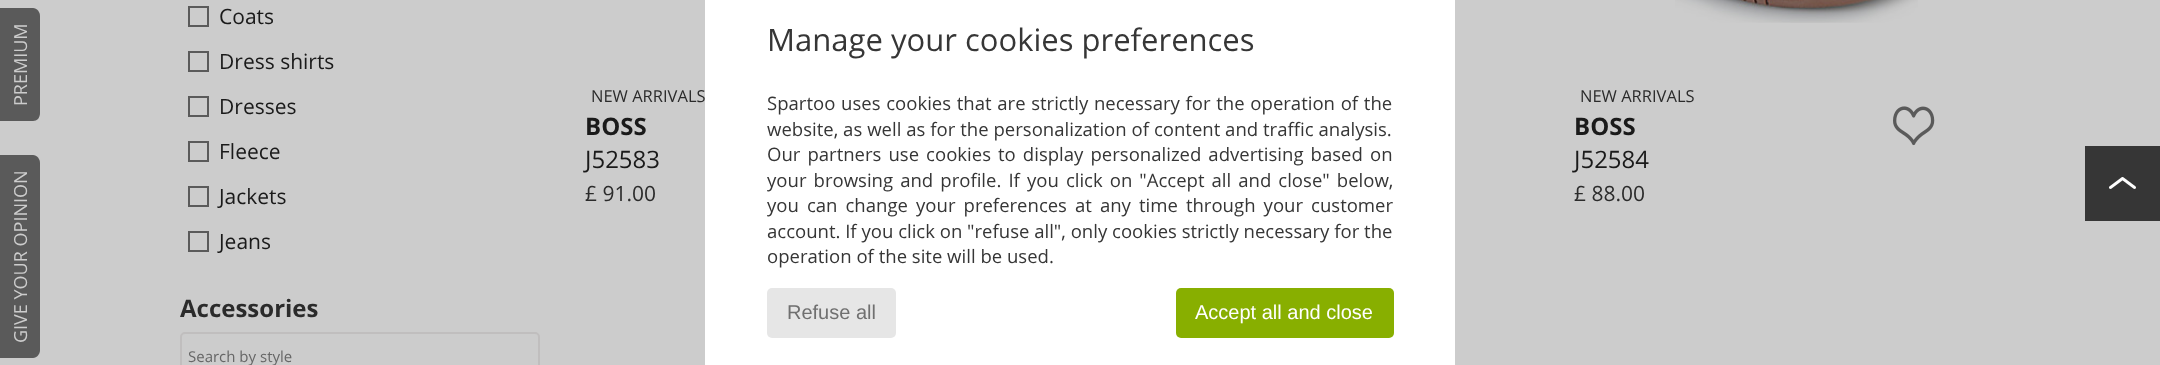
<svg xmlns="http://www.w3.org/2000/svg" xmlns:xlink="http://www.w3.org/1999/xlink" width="2160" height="365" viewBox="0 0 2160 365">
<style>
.cls-1{font:18px Open Sans;fill:#cccccc}
.cls-2{font:21px Open Sans;fill:#1a1a1a}
.cls-3{font:bold 24px Open Sans;fill:#2b2b2b}
.cls-4{font:15px Open Sans;fill:#666666}
.cls-5{font:16.5px Open Sans;fill:#2b2b2b}
.cls-6{font:bold 24px Open Sans;fill:#1a1a1a}
.cls-7{font:24px Open Sans;fill:#1a1a1a}
.cls-8{font:21px Open Sans;fill:#2b2b2b}
.cls-9{font:31px Open Sans;fill:#363636}
.cls-10{font:18.55px Open Sans;fill:#363636}
.cls-11{font:20px Liberation Sans;fill:#707070}
.cls-12{font:20px Liberation Sans;fill:#ffffff}
</style>
<rect width="100%" height="100%" fill="#cccccc"/>
<path fill="#5a5a5a" d="M0 121V8H33C37 8 40 12 40 16V113C40 118 37 121 33 121Z"/>
<path fill="#5a5a5a" d="M0 358V155H33C37 155 40 159 40 163V350C40 354 37 358 33 358Z"/>
<rect fill="none" stroke="#5a5a5a" stroke-width="2" x="189" y="7" width="19" height="19"/>
<rect fill="none" stroke="#5a5a5a" stroke-width="2" x="189" y="52" width="19" height="19"/>
<rect fill="none" stroke="#5a5a5a" stroke-width="2" x="189" y="97" width="19" height="19"/>
<rect fill="none" stroke="#5a5a5a" stroke-width="2" x="189" y="142" width="19" height="19"/>
<rect fill="none" stroke="#5a5a5a" stroke-width="2" x="189" y="187" width="19" height="19"/>
<rect fill="none" stroke="#5a5a5a" stroke-width="2" x="189" y="232" width="19" height="19"/>
<rect fill="none" stroke="#c0bebe" stroke-width="2" x="181" y="333" width="358" height="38" rx="4"/>
<image xlink:href="image0.png" x="1675" y="0" width="243" height="23"/>
<image xlink:href="image1.png" x="1893" y="106" width="42" height="40"/>
<rect fill="#ffffff" x="705" y="0" width="750" height="365"/>
<rect fill="#e6e6e6" x="767" y="288" width="129" height="50" rx="5"/>
<rect fill="#88af00" x="1176" y="288" width="218" height="50" rx="5"/>
<rect fill="#363636" x="2085" y="146" width="75" height="75"/>
<image xlink:href="image2.png" x="2109" y="177" width="27" height="12"/>
<text class="cls-1" x="27" y="106" transform="rotate(-90 27 106)">PREMIUM</text>
<text class="cls-1" x="27" y="343" transform="rotate(-90 27 343)">GIVE YOUR OPINION</text>
<text class="cls-2" x="219" y="24">Coats</text>
<text class="cls-2" x="219" y="69">Dress shirts</text>
<text class="cls-2" x="219" y="114">Dresses</text>
<text class="cls-2" x="219" y="159">Fleece</text>
<text class="cls-2" x="219" y="204">Jackets</text>
<text class="cls-2" x="219" y="249">Jeans</text>
<text class="cls-3" x="180" y="317">Accessories</text>
<text class="cls-4" x="188" y="362">Search by style</text>
<text class="cls-5" x="591" y="102">NEW ARRIVALS</text>
<text class="cls-6" x="585" y="135">BOSS</text>
<text class="cls-7" x="585" y="168">J52583</text>
<text class="cls-8" x="585" y="201">£ 91.00</text>
<text class="cls-5" x="1580" y="102">NEW ARRIVALS</text>
<text class="cls-6" x="1574" y="135">BOSS</text>
<text class="cls-7" x="1574" y="168">J52584</text>
<text class="cls-8" x="1574" y="201">£ 88.00</text>
<text class="cls-9" x="767" y="51">Manage your cookies preferences</text>
<text class="cls-10"><tspan x="767" y="110" word-spacing="0.9">Spartoo uses cookies that are strictly necessary for the operation of the</tspan><tspan x="767" y="136" word-spacing="0.1">website, as well as for the personalization of content and traffic analysis.</tspan><tspan x="767" y="161" word-spacing="2.25">Our partners use cookies to display personalized advertising based on</tspan><tspan x="767" y="187" word-spacing="2.25">your browsing and profile. If you click on "Accept all and close" below,</tspan><tspan x="767" y="212" word-spacing="3.25">you can change your preferences at any time through your customer</tspan><tspan x="767" y="238">account. If you click on "refuse all", only cookies strictly necessary for the</tspan><tspan x="767" y="263">operation of the site will be used.</tspan></text>
<text class="cls-11" x="787" y="319">Refuse all</text>
<text class="cls-12" x="1195" y="319">Accept all and close</text>
</svg>
